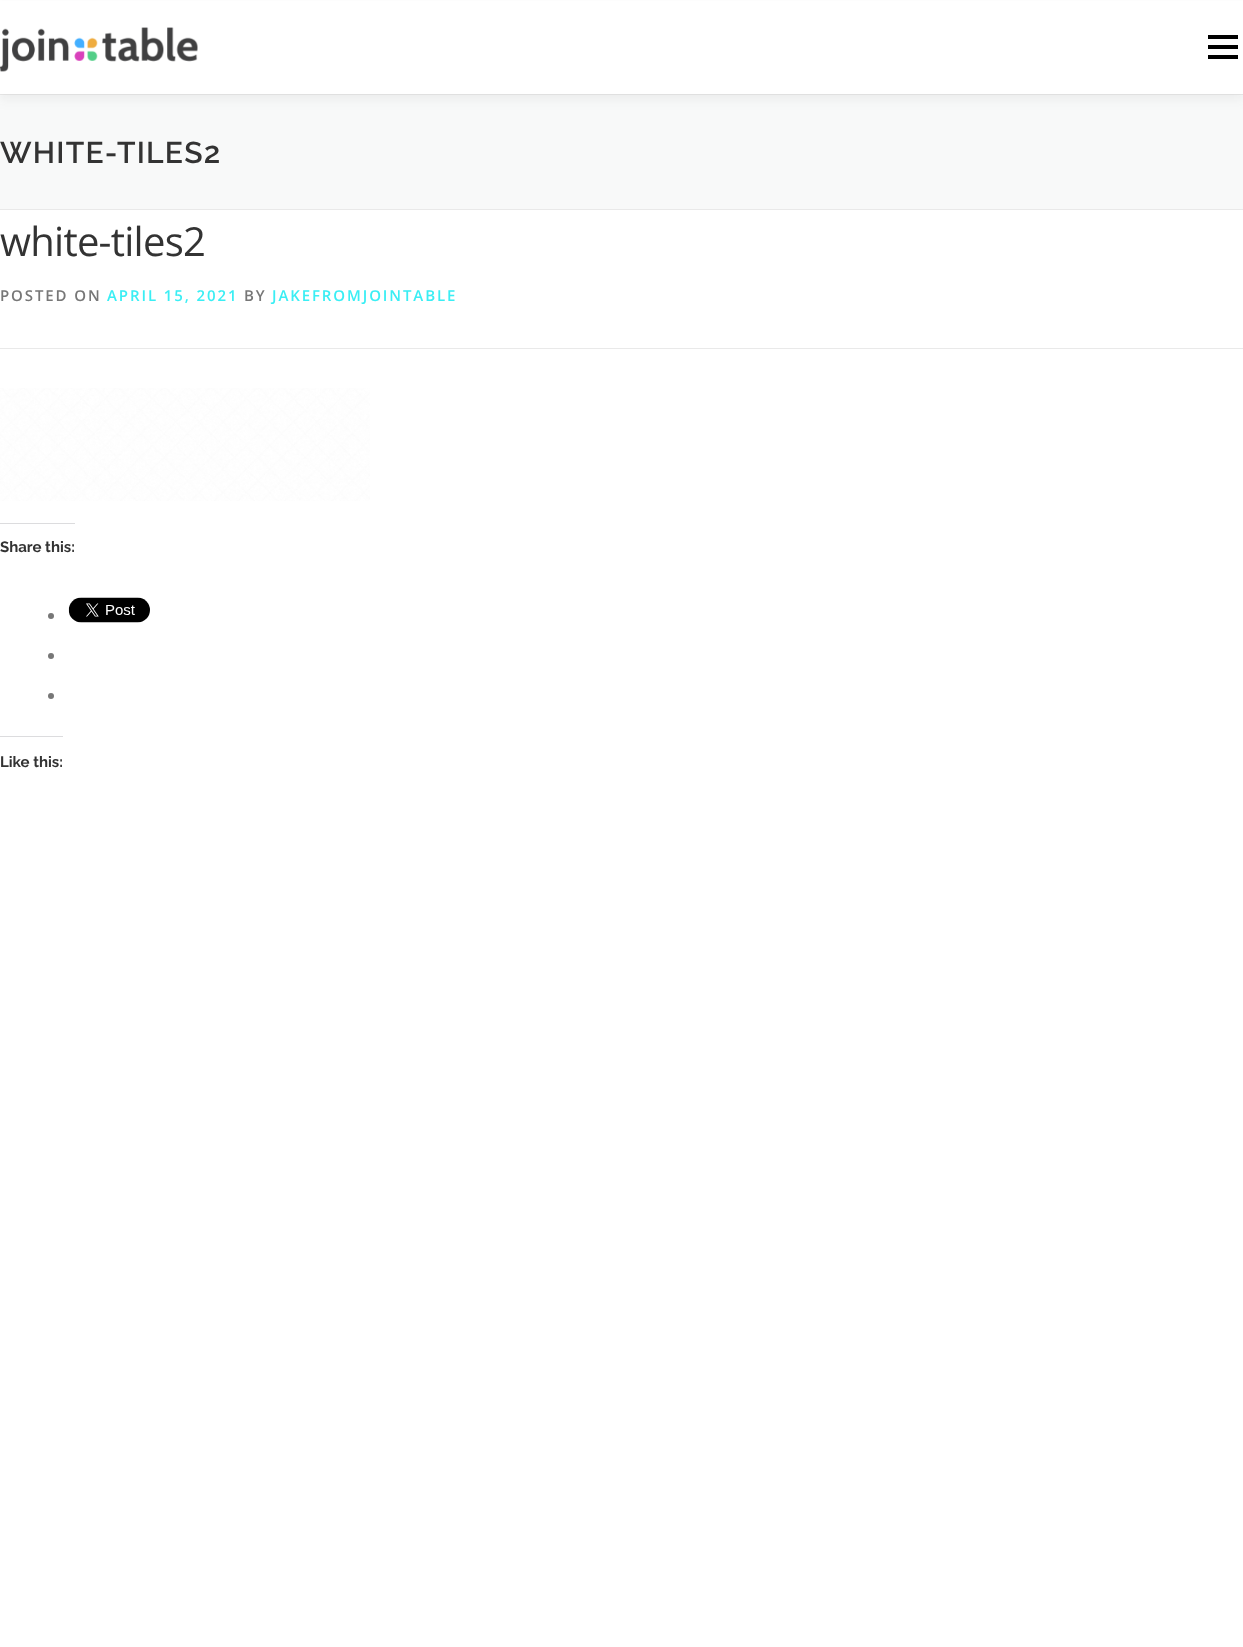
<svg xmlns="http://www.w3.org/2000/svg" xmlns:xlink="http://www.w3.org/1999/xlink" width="1243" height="1647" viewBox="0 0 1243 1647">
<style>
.cls-1{font:600 30px Raleway;letter-spacing:1.25px;fill:#333333}
.cls-2{font:40px Open Sans;letter-spacing:-0.75px;fill:#333333}
.cls-3{font:600 15px Open Sans;letter-spacing:1.9px;fill:#777777}
.cls-4{font:600 15px Open Sans;letter-spacing:1.9px;fill:#3aeef4}
.cls-5{font:bold 15px Raleway;fill:#333333}
</style>
<rect width="100%" height="100%" fill="#ffffff"/>
<rect fill="#f8f9f9" x="0" y="95" width="1243" height="114"/>
<rect fill="#e9e9e9" x="0" y="94" width="1243" height="1"/>
<rect fill="#323232" fill-opacity="0.06" filter="blur(6px)" x="0" y="6" width="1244" height="94"/>
<rect fill="#ffffff" x="0" y="1" width="1243" height="93"/>
<image xlink:href="image0.png" x="0" y="27" width="198" height="45"/>
<rect fill="#000000" x="1208" y="45" width="30" height="4"/>
<rect fill="#000000" x="1208" y="35" width="30" height="4"/>
<rect fill="#000000" x="1208" y="55" width="30" height="4"/>
<rect fill="#e9e9e9" x="0" y="209" width="1243" height="1"/>
<rect fill="#e9e9e9" x="0" y="348" width="1243" height="1"/>
<image xlink:href="image1.png" x="0" y="388" width="370" height="113"/>
<rect fill="#dcdcde" x="0" y="523" width="75" height="1"/>
<circle fill="#777777" cx="51" cy="616" r="3"/>
<image xlink:href="image2.png" x="68" y="597" width="82" height="26"/>
<circle fill="#777777" cx="51" cy="656" r="3"/>
<circle fill="#777777" cx="51" cy="696" r="3"/>
<rect fill="#dcdcde" x="0" y="736" width="63" height="1"/>
<text class="cls-1" x="0" y="163">WHITE-TILES2</text>
<text class="cls-2" x="0" y="256">white-tiles2</text>
<text class="cls-3" x="0" y="301">POSTED ON</text>
<text class="cls-4" x="107" y="301">APRIL 15, 2021</text>
<text class="cls-3" x="244" y="301">BY</text>
<text class="cls-4" x="272" y="301">JAKEFROMJOINTABLE</text>
<text class="cls-5" x="0" y="552">Share this:</text>
<text class="cls-5" x="0" y="767">Like this:</text>
</svg>
